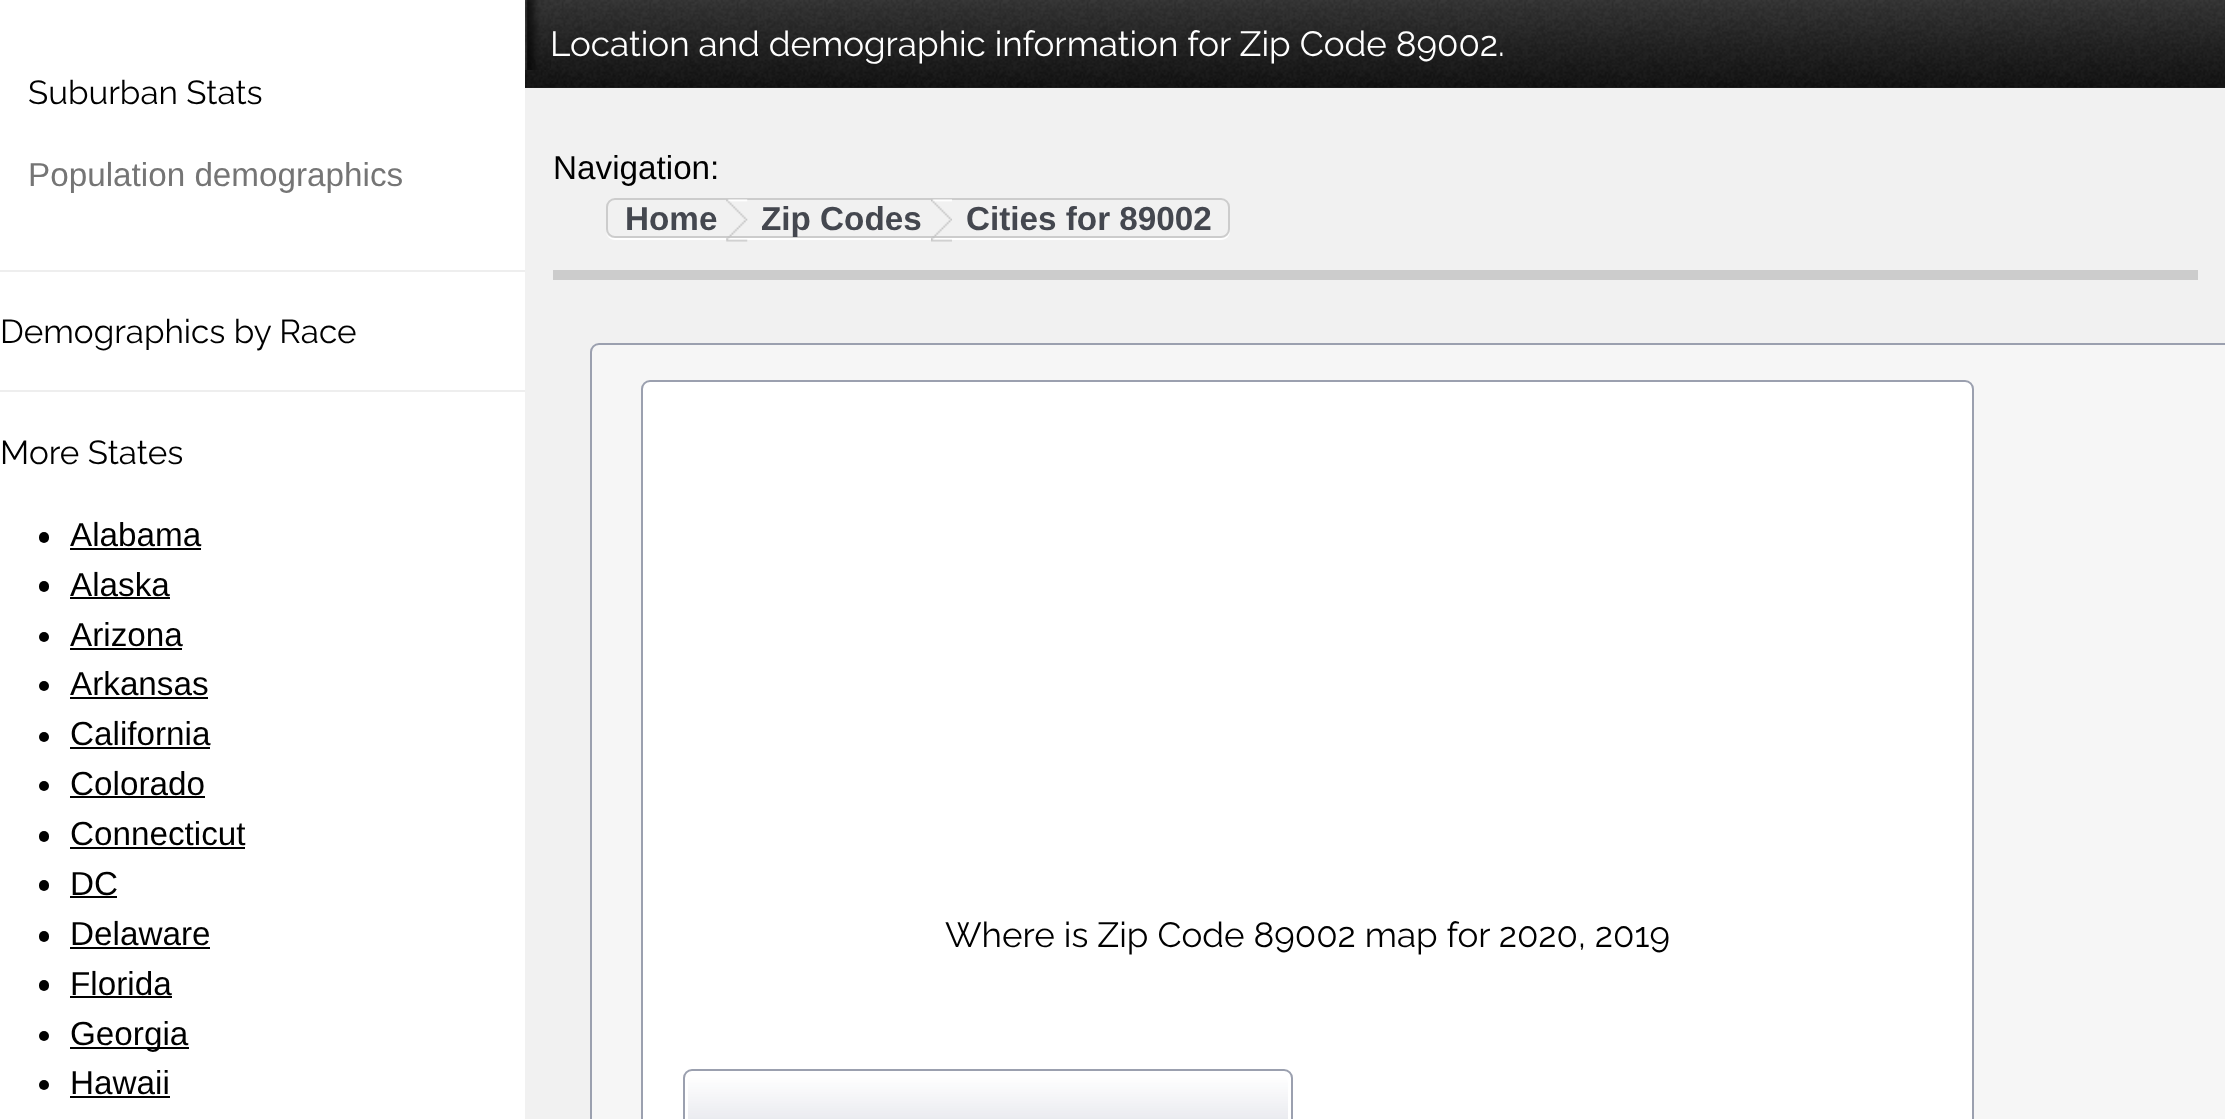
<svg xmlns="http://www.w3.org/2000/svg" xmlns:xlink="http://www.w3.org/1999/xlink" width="2225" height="1119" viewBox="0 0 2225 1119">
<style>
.cls-1{font:100 33.25px Raleway;fill:#000000}
.cls-2{font:33.25px Liberation Sans;fill:#757575}
.cls-3{font:33.25px Liberation Sans;fill:#000000}
.cls-4{font:100 35px Raleway;fill:#ffffff}
.cls-5{font:bold 33.25px Liberation Sans;fill:#44474f}
.cls-6{font:100 35px Raleway;fill:#000000}
</style>
<rect width="100%" height="100%" fill="#f1f1f1"/>
<rect fill="#ffffff" x="0" y="0" width="525" height="1119"/>
<rect fill="#eeeeee" x="0" y="270" width="525" height="2"/>
<rect fill="#eeeeee" x="0" y="390" width="525" height="2"/>
<rect fill="#000000" x="39" y="532" width="10" height="11" rx="5"/>
<rect fill="#000000" x="70" y="548" width="131" height="2"/>
<rect fill="#000000" x="39" y="581" width="10" height="11" rx="5"/>
<rect fill="#000000" x="70" y="597" width="100" height="2"/>
<circle fill="#000000" cx="44" cy="637" r="5"/>
<rect fill="#000000" x="70" y="648" width="112" height="2"/>
<circle fill="#000000" cx="44" cy="686" r="5"/>
<rect fill="#000000" x="70" y="697" width="138" height="2"/>
<circle fill="#000000" cx="44" cy="737" r="5"/>
<rect fill="#000000" x="70" y="747" width="140" height="2"/>
<circle fill="#000000" cx="44" cy="786" r="5"/>
<rect fill="#000000" x="70" y="796" width="135" height="2"/>
<rect fill="#000000" x="39" y="831" width="10" height="11" rx="5"/>
<rect fill="#000000" x="70" y="847" width="175" height="2"/>
<rect fill="#000000" x="39" y="880" width="10" height="11" rx="5"/>
<rect fill="#000000" x="70" y="896" width="47" height="2"/>
<rect fill="#000000" x="39" y="931" width="10" height="11" rx="5"/>
<rect fill="#000000" x="70" y="947" width="140" height="2"/>
<rect fill="#000000" x="39" y="980" width="10" height="11" rx="5"/>
<rect fill="#000000" x="70" y="996" width="102" height="2"/>
<circle fill="#000000" cx="44" cy="1036" r="5"/>
<rect fill="#000000" x="70" y="1047" width="119" height="2"/>
<circle fill="#000000" cx="44" cy="1085" r="5"/>
<rect fill="#000000" x="70" y="1096" width="100" height="2"/>
<rect fill="#222222" x="525" y="87" width="1700" height="1"/>
<image xlink:href="image0.png" x="525" y="0" width="1700" height="88"/>
<image xlink:href="image1.png" x="525" y="0" width="26" height="70"/>
<rect fill="#cccccc" x="553" y="270" width="1645" height="10"/>
<path fill="#ffffff" d="M606 233C607 237 611 240 615 240H1221C1226 240 1230 236 1230 231C1229 235 1226 238 1222 238H614C611 238 607 236 606 233Z"/>
<rect fill="none" stroke="#cccccc" stroke-width="2" x="607" y="199" width="622" height="38" rx="8"/>
<image xlink:href="image2.png" x="726" y="199" width="22" height="43"/>
<image xlink:href="image3.png" x="931" y="199" width="21" height="43"/>
<rect fill="#f6f6f6" stroke="#9ba0af" stroke-width="2" x="591" y="344" width="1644" height="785" rx="8"/>
<rect fill="#ffffff" stroke="#9ba0af" stroke-width="2" x="642" y="381" width="1331" height="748" rx="8"/>
<rect fill="none" stroke="#9ba0af" stroke-width="2" x="684" y="1070" width="608" height="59" rx="8"/>
<image xlink:href="image4.png" x="688" y="1075" width="600" height="44"/>
<text class="cls-1" x="28" y="104">Suburban Stats</text>
<text class="cls-2" x="28" y="186">Population demographics</text>
<text class="cls-1" x="0" y="343">Demographics by Race</text>
<text class="cls-1" x="0" y="464">More States</text>
<text class="cls-3"><tspan x="70" y="546">Alabama</tspan><tspan x="70" y="596">Alaska</tspan><tspan x="70" y="646">Arizona</tspan><tspan x="70" y="695">Arkansas</tspan><tspan x="70" y="745">California</tspan><tspan x="70" y="795">Colorado</tspan><tspan x="70" y="845">Connecticut</tspan><tspan x="70" y="895">DC</tspan><tspan x="70" y="945">Delaware</tspan><tspan x="70" y="995">Florida</tspan><tspan x="70" y="1045">Georgia</tspan><tspan x="70" y="1094">Hawaii</tspan></text>
<text class="cls-4" x="550" y="56">Location and demographic information for Zip Code 89002.</text>
<text class="cls-3" x="553" y="179">Navigation:</text>
<text class="cls-5" x="625" y="230">Home</text>
<text class="cls-5" x="761" y="230">Zip Codes</text>
<text class="cls-5" x="966" y="230">Cities for 89002</text>
<text class="cls-6" x="945" y="947">Where is Zip Code 89002 map for 2020, 2019</text>
</svg>
